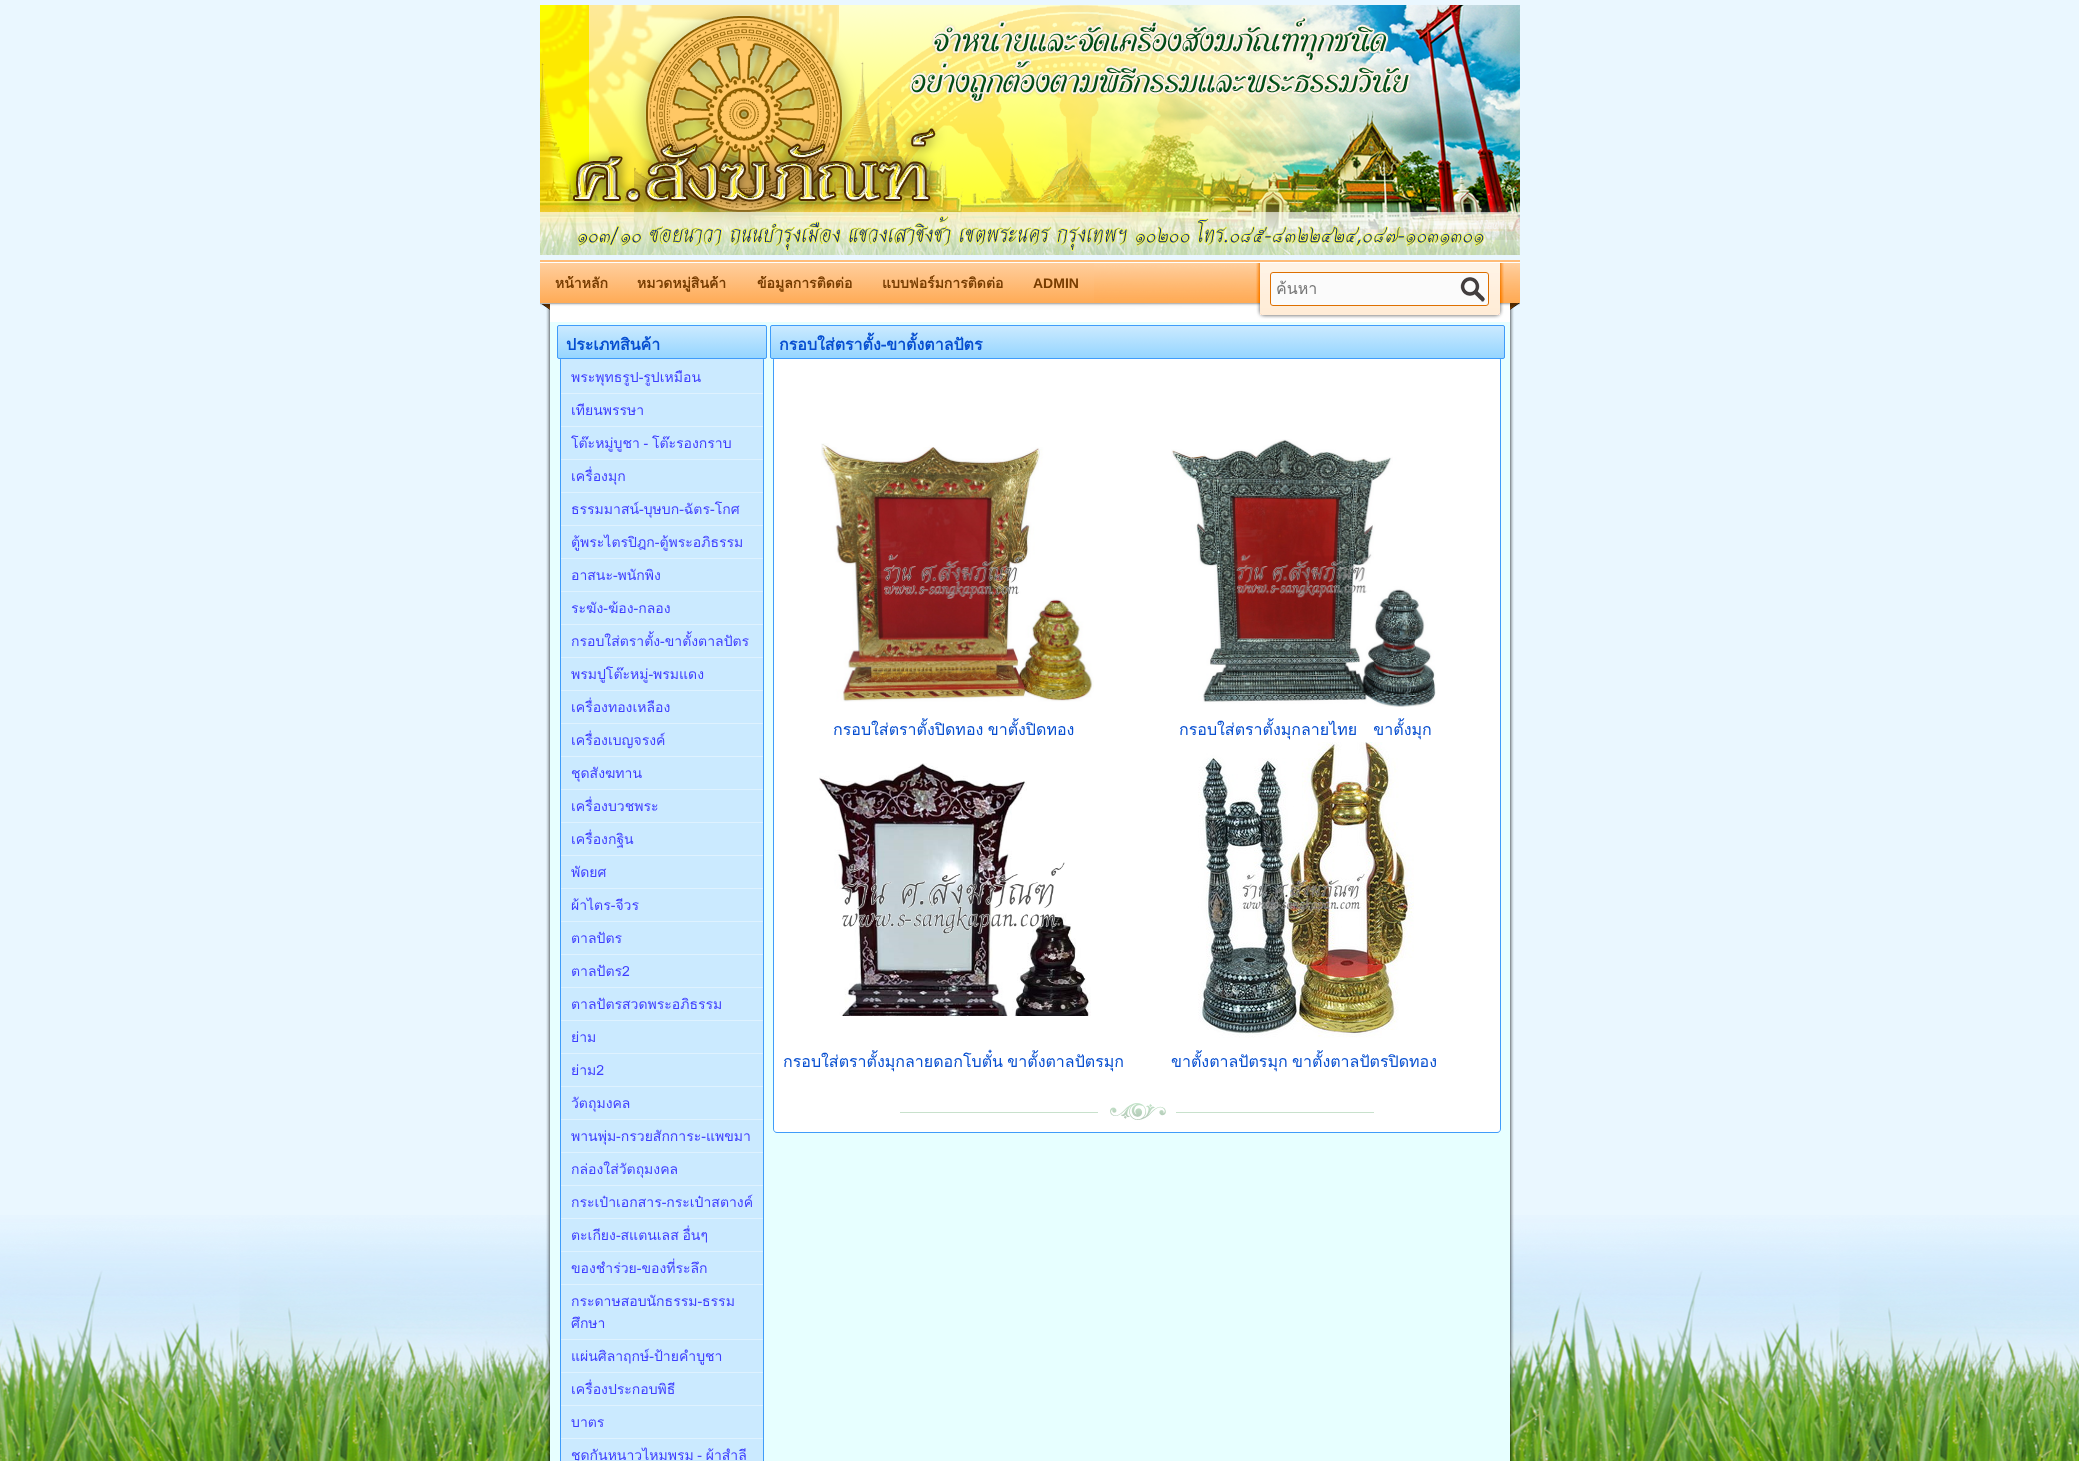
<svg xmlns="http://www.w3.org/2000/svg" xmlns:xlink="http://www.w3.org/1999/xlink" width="2079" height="1461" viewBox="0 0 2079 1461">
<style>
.cls-1{font:bold 14px Loma;fill:#773c00}
.cls-2{font:bold 14px Liberation Sans;fill:#773c00}
.cls-3{font:16px Loma;fill:#757575}
.cls-4{font:bold 16px Loma;fill:#064ed0}
.cls-5{font:14px Loma;fill:#3e3eff}
.cls-6{font:16px Loma;fill:#064ed0}
</style>
<defs>
<linearGradient id="g1" gradientUnits="userSpaceOnUse" x1="581" y1="303" x2="581" y2="263"><stop offset="0" stop-color="#ffab56"/><stop offset="1" stop-color="#ffce9d"/></linearGradient>
<linearGradient id="g2" gradientUnits="userSpaceOnUse" x1="682" y1="303" x2="682" y2="263"><stop offset="0" stop-color="#ffab56"/><stop offset="1" stop-color="#ffce9d"/></linearGradient>
<linearGradient id="g3" gradientUnits="userSpaceOnUse" x1="805" y1="303" x2="805" y2="263"><stop offset="0" stop-color="#ffab56"/><stop offset="1" stop-color="#ffce9d"/></linearGradient>
<linearGradient id="g4" gradientUnits="userSpaceOnUse" x1="943" y1="303" x2="943" y2="263"><stop offset="0" stop-color="#ffab56"/><stop offset="1" stop-color="#ffce9d"/></linearGradient>
<linearGradient id="g5" gradientUnits="userSpaceOnUse" x1="1056" y1="303" x2="1056" y2="263"><stop offset="0" stop-color="#ffab56"/><stop offset="1" stop-color="#ffce9d"/></linearGradient>
<clipPath id="clip1"><rect x="557" y="325" width="210" height="34" rx="2"/></clipPath>
<linearGradient id="g6" gradientUnits="userSpaceOnUse" x1="662" y1="326" x2="662" y2="358"><stop offset="0" stop-color="#cbeaff"/><stop offset="1" stop-color="#95d5ff"/></linearGradient>
<clipPath id="clip2"><rect x="770" y="325" width="735" height="34" rx="2"/></clipPath>
<linearGradient id="g7" gradientUnits="userSpaceOnUse" x1="1138" y1="326" x2="1138" y2="358"><stop offset="0" stop-color="#cbeaff"/><stop offset="1" stop-color="#95d5ff"/></linearGradient>
<clipPath id="clip3"><rect x="1276" y="276" width="180" height="25"/></clipPath>
</defs>
<rect width="100%" height="100%" fill="#eaf7ff"/>
<image xlink:href="image0.png" x="0" y="1215" width="2079" height="246"/>
<image xlink:href="image1.png" x="540" y="5" width="980" height="250"/>
<image xlink:href="image2.png" x="540" y="262" width="980" height="60"/>
<rect fill="#ffbc79" x="540" y="260" width="980" height="2"/>
<rect fill="url(#g1)" x="540" y="263" width="82" height="40"/>
<rect fill="#b5b5b5" x="540" y="303" width="82" height="1"/>
<rect fill="url(#g2)" x="622" y="263" width="120" height="40"/>
<rect fill="url(#g3)" x="742" y="263" width="125" height="40"/>
<rect fill="#b5b5b5" x="622" y="303" width="270" height="1"/>
<rect fill="url(#g4)" x="867" y="263" width="151" height="40"/>
<rect fill="url(#g5)" x="1018" y="263" width="76" height="40"/>
<rect fill="#fbfbfb" x="1270" y="272" width="219" height="34" rx="3"/>
<image xlink:href="image3.png" x="1460" y="277" width="25" height="25"/>
<rect fill="none" stroke="#dd6f00" x="1270.5" y="272.5" width="218" height="33" rx="2.5"/>
<image xlink:href="image4.png" x="546" y="322" width="968" height="1139"/>
<rect fill="#cbeaff" x="560" y="359" width="204" height="1102"/>
<path fill="#3f9cfa" fill-rule="evenodd" d="M564 356H760C762 356 764 358 764 360V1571C764 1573 762 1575 760 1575H564C562 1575 560 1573 560 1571V360C560 358 562 356 564 356ZM564 356H760C762 356 763 358 763 360V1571C763 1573 762 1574 760 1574H564C562 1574 561 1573 561 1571V360C561 358 562 356 564 356Z"/>
<g clip-path="url(#clip1)">
<rect fill="url(#g6)" x="557" y="326" width="210" height="32"/>
</g>
<rect fill="none" stroke="#3f9cfa" x="557.5" y="325.5" width="209" height="33" rx="1.5"/>
<rect fill="#dff2ff" x="561" y="393" width="202" height="1"/>
<rect fill="#dff2ff" x="561" y="426" width="202" height="1"/>
<rect fill="#dff2ff" x="561" y="459" width="202" height="1"/>
<rect fill="#dff2ff" x="561" y="492" width="202" height="1"/>
<rect fill="#dff2ff" x="561" y="525" width="202" height="1"/>
<rect fill="#dff2ff" x="561" y="558" width="202" height="1"/>
<rect fill="#dff2ff" x="561" y="591" width="202" height="1"/>
<rect fill="#dff2ff" x="561" y="624" width="202" height="1"/>
<rect fill="#dff2ff" x="561" y="657" width="202" height="1"/>
<rect fill="#dff2ff" x="561" y="690" width="202" height="1"/>
<rect fill="#dff2ff" x="561" y="723" width="202" height="1"/>
<rect fill="#dff2ff" x="561" y="756" width="202" height="1"/>
<rect fill="#dff2ff" x="561" y="789" width="202" height="1"/>
<rect fill="#dff2ff" x="561" y="822" width="202" height="1"/>
<rect fill="#dff2ff" x="561" y="855" width="202" height="1"/>
<rect fill="#dff2ff" x="561" y="888" width="202" height="1"/>
<rect fill="#dff2ff" x="561" y="921" width="202" height="1"/>
<rect fill="#dff2ff" x="561" y="954" width="202" height="1"/>
<rect fill="#dff2ff" x="561" y="987" width="202" height="1"/>
<rect fill="#dff2ff" x="561" y="1020" width="202" height="1"/>
<rect fill="#dff2ff" x="561" y="1053" width="202" height="1"/>
<rect fill="#dff2ff" x="561" y="1086" width="202" height="1"/>
<rect fill="#dff2ff" x="561" y="1119" width="202" height="1"/>
<rect fill="#dff2ff" x="561" y="1152" width="202" height="1"/>
<rect fill="#dff2ff" x="561" y="1185" width="202" height="1"/>
<rect fill="#dff2ff" x="561" y="1218" width="202" height="1"/>
<rect fill="#dff2ff" x="561" y="1251" width="202" height="1"/>
<rect fill="#dff2ff" x="561" y="1284" width="202" height="1"/>
<rect fill="#dff2ff" x="561" y="1339" width="202" height="1"/>
<rect fill="#dff2ff" x="561" y="1372" width="202" height="1"/>
<rect fill="#dff2ff" x="561" y="1405" width="202" height="1"/>
<rect fill="#dff2ff" x="561" y="1438" width="202" height="1"/>
<rect fill="#ffffff" x="773" y="356" width="728" height="777" rx="4"/>
<path fill="#3f9cfa" fill-rule="evenodd" d="M777 356H1497C1499 356 1501 358 1501 360V1129C1501 1131 1499 1133 1497 1133H777C775 1133 773 1131 773 1129V360C773 358 775 356 777 356ZM777 356H1497C1499 356 1500 358 1500 360V1129C1500 1131 1499 1132 1497 1132H777C775 1132 774 1131 774 1129V360C774 358 775 356 777 356Z"/>
<g clip-path="url(#clip2)">
<rect fill="url(#g7)" x="770" y="326" width="735" height="32"/>
</g>
<rect fill="none" stroke="#3f9cfa" x="770.5" y="325.5" width="734" height="33" rx="1.5"/>
<image xlink:href="image5.png" x="821" y="443" width="273" height="259"/>
<image xlink:href="image6.png" x="1171" y="439" width="265" height="268"/>
<image xlink:href="image7.png" x="819" y="763" width="272" height="253"/>
<image xlink:href="image8.png" x="1198" y="742" width="216" height="296"/>
<image xlink:href="image9.png" x="900" y="1103" width="474" height="17"/>
<text class="cls-1" x="555" y="288">หน้าหลัก</text>
<text class="cls-1" x="637" y="288">หมวดหมู่สินค้า</text>
<text class="cls-1" x="757" y="288">ข้อมูลการติดต่อ</text>
<text class="cls-1" x="882" y="288">แบบฟอร์มการติดต่อ</text>
<text class="cls-2" x="1033" y="288">ADMIN</text>
<g clip-path="url(#clip3)">
<text class="cls-3" x="1276" y="294">ค้นหา</text>
</g>
<text class="cls-4" x="566" y="350">ประเภทสินค้า</text>
<text class="cls-5" x="571" y="382">พระพุทธรูป-รูปเหมือน</text>
<text class="cls-5" x="571" y="415">เทียนพรรษา</text>
<text class="cls-5" x="571" y="448" word-spacing="-1">โต๊ะหมู่บูชา - โต๊ะรองกราบ</text>
<text class="cls-5" x="571" y="481">เครื่องมุก</text>
<text class="cls-5" x="571" y="514">ธรรมมาสน์-บุษบก-ฉัตร-โกศ</text>
<text class="cls-5" x="571" y="547">ตู้พระไตรปิฎก-ตู้พระอภิธรรม</text>
<text class="cls-5" x="571" y="580">อาสนะ-พนักพิง</text>
<text class="cls-5" x="571" y="613">ระฆัง-ฆ้อง-กลอง</text>
<text class="cls-5" x="571" y="646">กรอบใส่ตราตั้ง-ขาตั้งตาลปัตร</text>
<text class="cls-5" x="571" y="679">พรมปูโต๊ะหมู่-พรมแดง</text>
<text class="cls-5" x="571" y="712">เครื่องทองเหลือง</text>
<text class="cls-5" x="571" y="745">เครื่องเบญจรงค์</text>
<text class="cls-5" x="571" y="778">ชุดสังฆทาน</text>
<text class="cls-5" x="571" y="811">เครื่องบวชพระ</text>
<text class="cls-5" x="571" y="844">เครื่องกฐิน</text>
<text class="cls-5" x="571" y="877">พัดยศ</text>
<text class="cls-5" x="571" y="910">ผ้าไตร-จีวร</text>
<text class="cls-5" x="571" y="943">ตาลปัตร</text>
<text class="cls-5" x="571" y="976">ตาลปัตร2</text>
<text class="cls-5" x="571" y="1009">ตาลปัตรสวดพระอภิธรรม</text>
<text class="cls-5" x="571" y="1042">ย่าม</text>
<text class="cls-5" x="571" y="1075">ย่าม2</text>
<text class="cls-5" x="571" y="1108">วัตถุมงคล</text>
<text class="cls-5" x="571" y="1141">พานพุ่ม-กรวยสักการะ-แพขมา</text>
<text class="cls-5" x="571" y="1174">กล่องใส่วัตถุมงคล</text>
<text class="cls-5" x="571" y="1207">กระเป๋าเอกสาร-กระเป๋าสตางค์</text>
<text class="cls-5" x="571" y="1240" word-spacing="-1">ตะเกียง-สแตนเลส อื่นๆ</text>
<text class="cls-5" x="571" y="1273">ของชำร่วย-ของที่ระลึก</text>
<text class="cls-5"><tspan x="571" y="1306">กระดาษสอบนักธรรม-ธรรม</tspan><tspan x="571" y="1328">ศึกษา</tspan></text>
<text class="cls-5" x="571" y="1361">แผ่นศิลาฤกษ์-ป้ายคำบูชา</text>
<text class="cls-5" x="571" y="1394">เครื่องประกอบพิธี</text>
<text class="cls-5" x="571" y="1427">บาตร</text>
<text class="cls-5" x="571" y="1460" word-spacing="-1">ชุดกันหนาวไหมพรม - ผ้าสำลี</text>
<text class="cls-4" x="779" y="350">กรอบใส่ตราตั้ง-ขาตั้งตาลปัตร</text>
<text class="cls-6" x="833" y="735" word-spacing="-1">กรอบใส่ตราตั้งปิดทอง ขาตั้งปิดทอง</text>
<text class="cls-6" xml:space="preserve" x="1179" y="735">กรอบใส่ตราตั้งมุกลายไทย   ขาตั้งมุก</text>
<text class="cls-6" x="783" y="1067" word-spacing="-1">กรอบใส่ตราตั้งมุกลายดอกโบตั๋น ขาตั้งตาลปัตรมุก</text>
<text class="cls-6" x="1171" y="1067" word-spacing="-1">ขาตั้งตาลปัตรมุก ขาตั้งตาลปัตรปิดทอง</text>
</svg>
